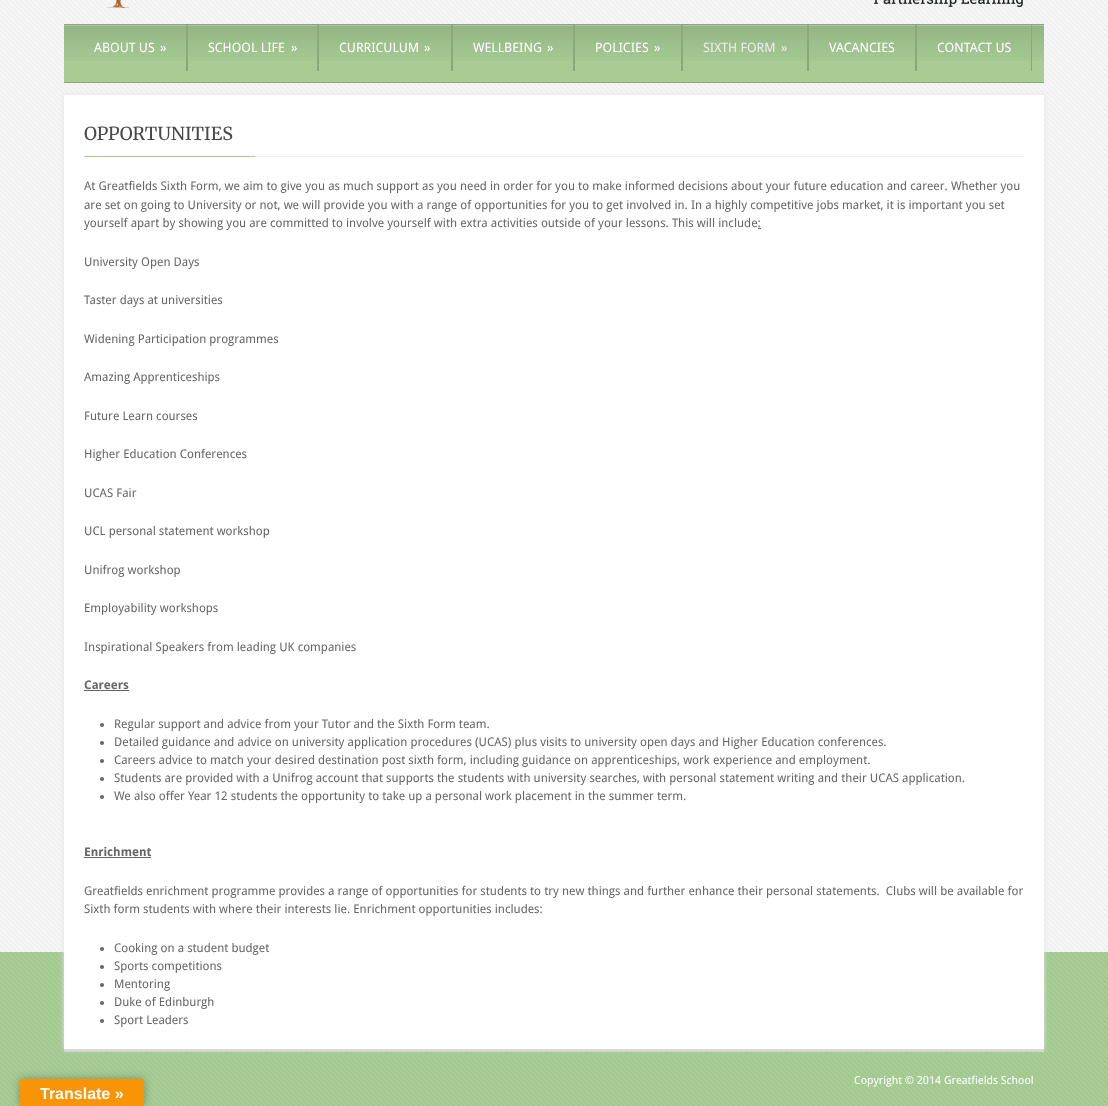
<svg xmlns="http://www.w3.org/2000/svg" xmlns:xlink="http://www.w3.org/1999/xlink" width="1108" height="1106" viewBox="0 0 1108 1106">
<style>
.cls-1{font:13px Droid Sans;fill:#ffffff}
.cls-2{font:13px Droid Sans;fill:#ededed}
.cls-3{font:18px Merriweather;fill:#494949}
.cls-4{font:12px Droid Sans;fill:#666666}
.cls-5{font:bold 12px Droid Sans;fill:#666666}
.cls-6{font:11px Droid Sans;fill:#ffffff}
.cls-7{font:bold 16px Liberation Sans;fill:#ffffff}
</style>
<rect width="100%" height="100%" fill="#f5f5f5"/>
<image xlink:href="image0.png" x="0" y="0" width="1108" height="952"/>
<image xlink:href="image1.png" x="106" y="0" width="917" height="8"/>
<rect fill="#a7cd95" x="64" y="25" width="980" height="57"/>
<image xlink:href="image2.png" x="64" y="25" width="980" height="36"/>
<rect fill="#89a87b" x="64" y="24" width="980" height="1"/>
<rect fill="#89a87b" x="64" y="82" width="980" height="1"/>
<rect fill="#a7cd95" x="74" y="25" width="112" height="36"/>
<image xlink:href="image3.png" x="74" y="25" width="112" height="36"/>
<rect fill="#89a87b" x="186" y="25" width="2" height="46"/>
<rect fill="#a7cd95" x="188" y="25" width="129" height="36"/>
<image xlink:href="image4.png" x="188" y="25" width="129" height="36"/>
<rect fill="#89a87b" x="317" y="25" width="2" height="46"/>
<rect fill="#a7cd95" x="319" y="25" width="132" height="36"/>
<image xlink:href="image5.png" x="319" y="25" width="132" height="36"/>
<rect fill="#89a87b" x="451" y="25" width="2" height="46"/>
<rect fill="#a7cd95" x="453" y="25" width="120" height="36"/>
<image xlink:href="image6.png" x="453" y="25" width="120" height="36"/>
<rect fill="#89a87b" x="573" y="25" width="2" height="46"/>
<rect fill="#a7cd95" x="575" y="25" width="106" height="36"/>
<image xlink:href="image7.png" x="575" y="25" width="106" height="36"/>
<rect fill="#89a87b" x="681" y="25" width="2" height="46"/>
<rect fill="#a7cd95" x="683" y="25" width="124" height="36"/>
<image xlink:href="image8.png" x="683" y="25" width="124" height="36"/>
<rect fill="#89a87b" x="807" y="25" width="2" height="46"/>
<rect fill="#a7cd95" x="809" y="25" width="106" height="36"/>
<image xlink:href="image7.png" x="809" y="25" width="106" height="36"/>
<rect fill="#89a87b" x="915" y="25" width="2" height="46"/>
<rect fill="#a7cd95" x="917" y="25" width="114" height="36"/>
<image xlink:href="image9.png" x="917" y="25" width="114" height="36"/>
<rect fill="#89a87b" x="1031" y="25" width="1" height="46"/>
<rect fill="#a7cd95" x="0" y="952" width="1108" height="154"/>
<image xlink:href="image10.png" x="0" y="952" width="1108" height="154"/>
<rect fill="#d2d2d2" x="64" y="1049" width="980" height="3"/>
<rect fill="#e5e5e5" filter="blur(2px)" x="64" y="95" width="980" height="954"/>
<rect fill="#ffffff" x="64" y="95" width="980" height="954"/>
<rect fill="#a7cd95" x="84" y="156" width="171" height="1"/>
<rect fill="#ececec" x="255" y="156" width="769" height="1"/>
<rect fill="#666666" x="758" y="228" width="3" height="1"/>
<rect fill="#666666" x="84" y="690" width="45" height="1"/>
<circle fill="#666666" cx="102" cy="725" r="2"/>
<circle fill="#666666" cx="102" cy="743" r="2"/>
<circle fill="#666666" cx="102" cy="761" r="2"/>
<circle fill="#666666" cx="102" cy="779" r="2"/>
<circle fill="#666666" cx="102" cy="797" r="2"/>
<rect fill="#666666" x="84" y="857" width="67" height="1"/>
<circle fill="#666666" cx="102" cy="949" r="2"/>
<circle fill="#666666" cx="102" cy="967" r="2"/>
<circle fill="#666666" cx="102" cy="985" r="2"/>
<circle fill="#666666" cx="102" cy="1003" r="2"/>
<circle fill="#666666" cx="102" cy="1021" r="2"/>
<rect fill="#a7cd95" x="74" y="1055" width="960" height="1"/>
<rect fill="#000000" fill-opacity="0.3" filter="blur(4.5px)" x="20" y="1079" width="124" height="27"/>
<rect fill="#f89406" x="20" y="1079" width="124" height="27"/>
<text class="cls-1" x="94" y="52">ABOUT US</text>
<text class="cls-1" x="160" y="52">»</text>
<text class="cls-1" x="208" y="52">SCHOOL LIFE</text>
<text class="cls-1" x="291" y="52">»</text>
<text class="cls-1" x="339" y="52">CURRICULUM</text>
<text class="cls-1" x="424" y="52">»</text>
<text class="cls-1" x="473" y="52">WELLBEING</text>
<text class="cls-1" x="547" y="52">»</text>
<text class="cls-1" x="595" y="52">POLICIES</text>
<text class="cls-1" x="654" y="52">»</text>
<text class="cls-2" x="703" y="52">SIXTH FORM</text>
<text class="cls-2" x="781" y="52">»</text>
<text class="cls-1" x="829" y="52">VACANCIES</text>
<text class="cls-1" x="937" y="52">CONTACT US</text>
<text class="cls-3" x="84" y="140">OPPORTUNITIES</text>
<text class="cls-4"><tspan x="84" y="190">At Greatfields Sixth Form, we aim to give you as much support as you need in order for you to make informed decisions about your future education and career. Whether you</tspan><tspan x="84" y="209">are set on going to University or not, we will provide you with a range of opportunities for you to get involved in. In a highly competitive jobs market, it is important you set</tspan><tspan x="84" y="227">yourself apart by showing you are committed to involve yourself with extra activities outside of your lessons. This will include:</tspan></text>
<text class="cls-4" x="84" y="266">University Open Days</text>
<text class="cls-4" x="84" y="304">Taster days at universities</text>
<text class="cls-4" x="84" y="343">Widening Participation programmes</text>
<text class="cls-4" x="84" y="381">Amazing Apprenticeships</text>
<text class="cls-4" x="84" y="420">Future Learn courses</text>
<text class="cls-4" x="84" y="458">Higher Education Conferences</text>
<text class="cls-4" x="84" y="497">UCAS Fair</text>
<text class="cls-4" x="84" y="535">UCL personal statement workshop</text>
<text class="cls-4" x="84" y="574">Unifrog workshop</text>
<text class="cls-4" x="84" y="612">Employability workshops</text>
<text class="cls-4" x="84" y="651">Inspirational Speakers from leading UK companies</text>
<text class="cls-5" x="84" y="689">Careers</text>
<text class="cls-4"><tspan x="114" y="728">Regular support and advice from your Tutor and the Sixth Form team.</tspan><tspan x="114" y="746">Detailed guidance and advice on university application procedures (UCAS) plus visits to university open days and Higher Education conferences.</tspan><tspan x="114" y="764">Careers advice to match your desired destination post sixth form, including guidance on apprenticeships, work experience and employment.</tspan><tspan x="114" y="782">Students are provided with a Unifrog account that supports the students with university searches, with personal statement writing and their UCAS application.</tspan><tspan x="114" y="800">We also offer Year 12 students the opportunity to take up a personal work placement in the summer term.</tspan></text>
<text class="cls-5" x="84" y="856">Enrichment</text>
<text class="cls-4" xml:space="preserve"><tspan x="84" y="895">Greatfields enrichment programme provides a range of opportunities for students to try new things and further enhance their personal statements.  Clubs will be available for</tspan><tspan x="84" y="913">Sixth form students with where their interests lie. Enrichment opportunities includes:</tspan></text>
<text class="cls-4"><tspan x="114" y="952">Cooking on a student budget</tspan><tspan x="114" y="970">Sports competitions</tspan><tspan x="114" y="988">Mentoring</tspan><tspan x="114" y="1006">Duke of Edinburgh</tspan><tspan x="114" y="1024">Sport Leaders</tspan></text>
<text class="cls-6" x="854" y="1084">Copyright © 2014 Greatfields School</text>
<text class="cls-7" x="40" y="1099">Translate »</text>
</svg>
